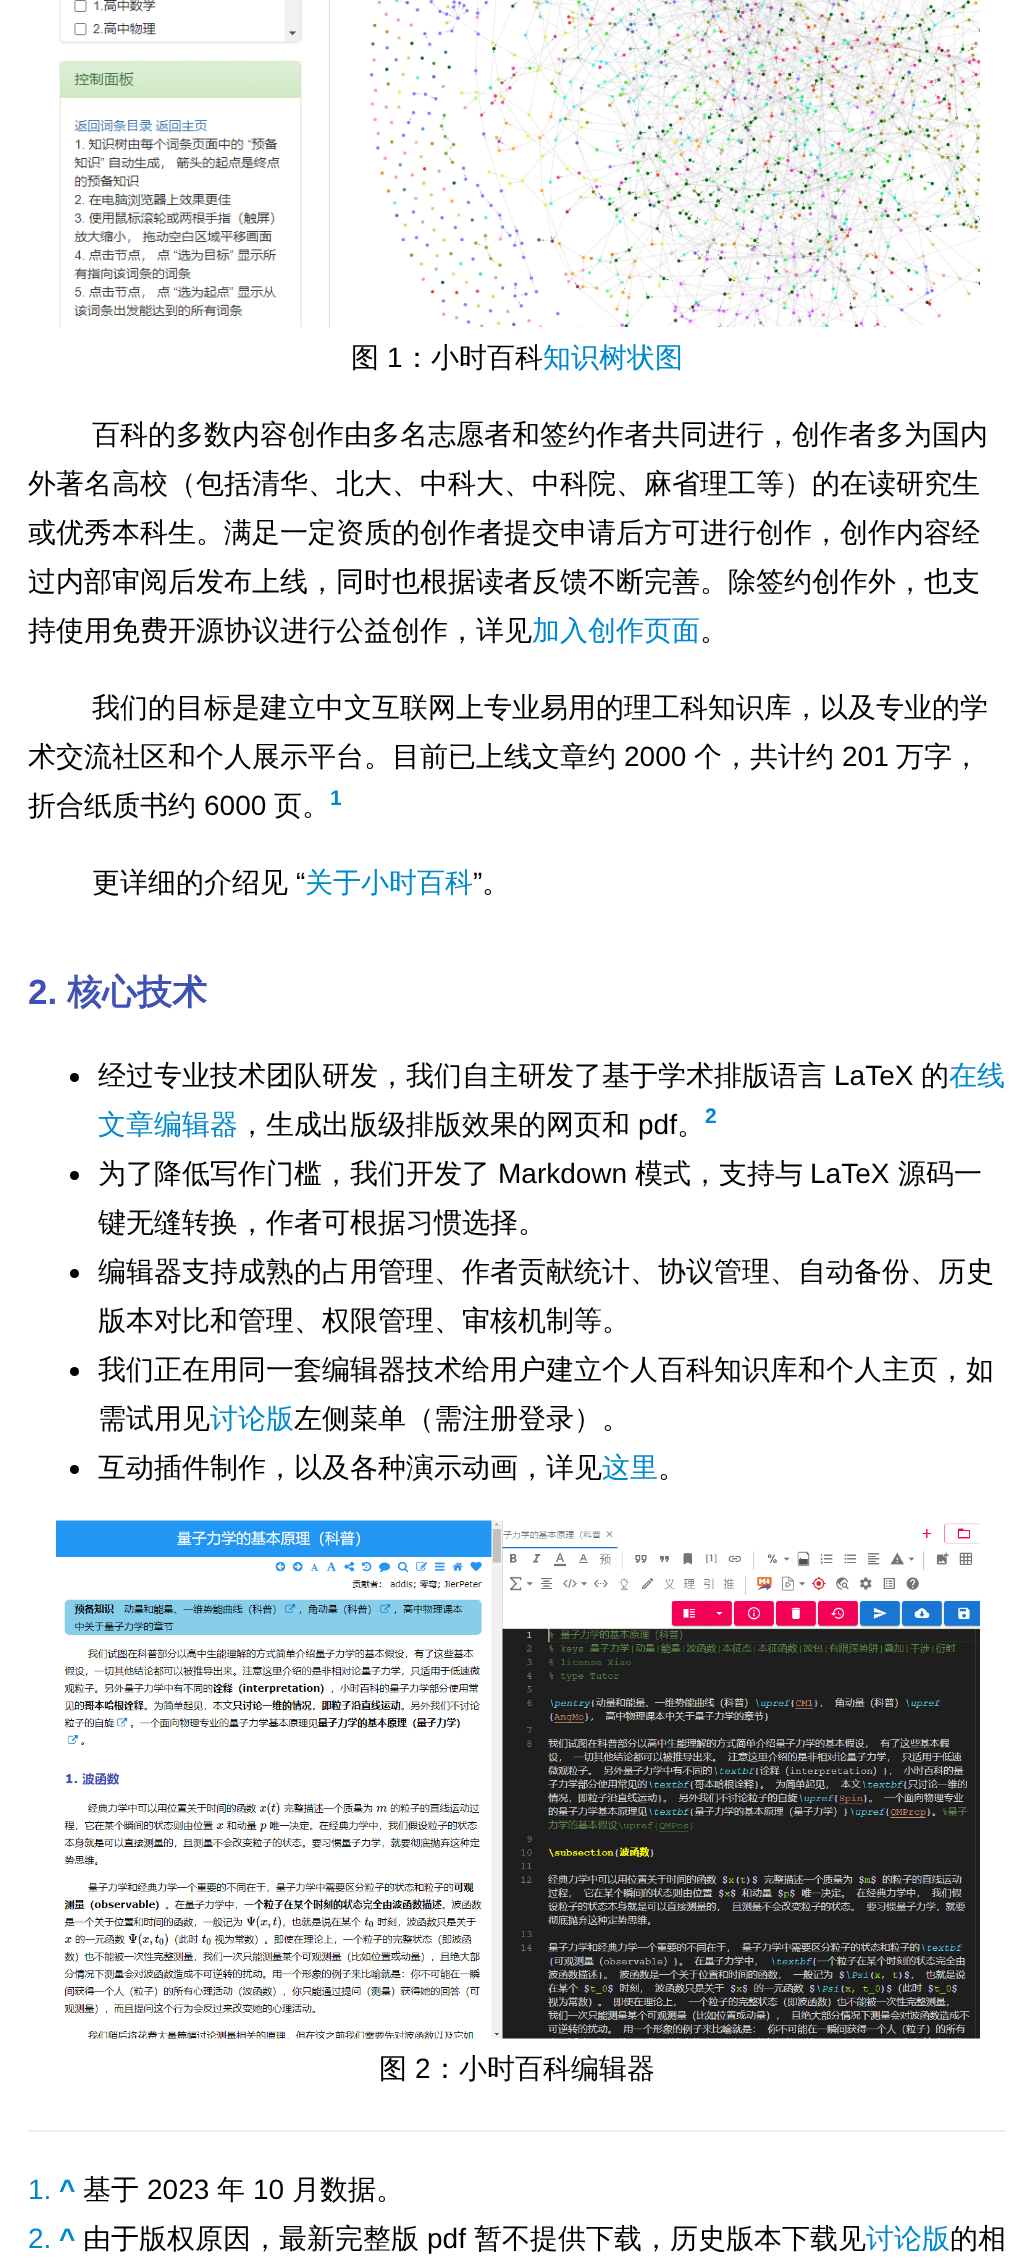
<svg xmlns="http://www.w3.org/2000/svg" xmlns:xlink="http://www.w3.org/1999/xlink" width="1034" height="2259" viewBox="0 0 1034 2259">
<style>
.cls-1{font:500 28px WenQuanYi Zen Hei;fill:#000000}
.cls-2{font:28px Liberation Sans;fill:#000000}
.cls-3{font:500 28px WenQuanYi Zen Hei;fill:#0088cc}
.cls-4{font:bold 21px Liberation Sans;fill:#0088cc}
.cls-5{font:bold 35px Liberation Sans;fill:#3f51b5}
.cls-6{font:bold 35px WenQuanYi Zen Hei;fill:#3f51b5}
.cls-7{font:28px Liberation Sans;fill:#0088cc}
.cls-8{font:bold 28px Liberation Sans;fill:#0088cc}
</style>
<rect width="100%" height="100%" fill="#ffffff"/>
<image xlink:href="image0.png" x="59" y="0" width="921" height="327"/>
<circle fill="#000000" cx="74.5" cy="1077.5" r="4.5"/>
<circle fill="#000000" cx="74.5" cy="1175.5" r="4.5"/>
<circle fill="#000000" cx="74.5" cy="1273.5" r="4.5"/>
<circle fill="#000000" cx="74.5" cy="1371.5" r="4.5"/>
<circle fill="#000000" cx="74.5" cy="1469.5" r="4.5"/>
<image xlink:href="image1.png" x="56" y="1520" width="924" height="519"/>
<rect fill="#eeeeee" x="28" y="2130" width="978" height="2"/>
<text class="cls-1" x="351" y="367">图</text>
<text class="cls-2" x="387" y="367">1</text>
<text class="cls-1" x="403" y="367">：小时百科</text>
<text class="cls-3" x="543" y="367">知识树状图</text>
<text class="cls-1" x="92" y="444">百科的多数内容创作由多名志愿者和签约作者共同进行，创作者多为国内</text>
<text class="cls-1"><tspan x="28" y="493">外著名高校（包括清华、北大、中科大、中科院、麻省理工等）的在读研究生</tspan><tspan x="28" y="542">或优秀本科生。满足一定资质的创作者提交申请后方可进行创作，创作内容经</tspan><tspan x="28" y="591">过内部审阅后发布上线，同时也根据读者反馈不断完善。除签约创作外，也支</tspan><tspan x="28" y="640">持使用免费开源协议进行公益创作，详见</tspan></text>
<text class="cls-3" x="532" y="640">加入创作页面</text>
<text class="cls-1" x="700" y="640">。</text>
<text class="cls-1" x="92" y="717">我们的目标是建立中文互联网上专业易用的理工科知识库，以及专业的学</text>
<text class="cls-1" x="28" y="766">术交流社区和个人展示平台。目前已上线文章约</text>
<text class="cls-2" x="624" y="766">2000</text>
<text class="cls-1" x="694" y="766">个，共计约</text>
<text class="cls-2" x="842" y="766">201</text>
<text class="cls-1" x="896" y="766">万字，</text>
<text class="cls-1" x="28" y="815">折合纸质书约</text>
<text class="cls-2" x="204" y="815">6000</text>
<text class="cls-1" x="274" y="815">页。</text>
<text class="cls-4" x="330" y="805">1</text>
<text class="cls-1" x="92" y="892">更详细的介绍见</text>
<text class="cls-2" x="296" y="892">“</text>
<text class="cls-3" x="305" y="892">关于小时百科</text>
<text class="cls-2" x="473" y="892">”</text>
<text class="cls-1" x="482" y="892">。</text>
<text class="cls-5" x="28" y="1004">2.</text>
<text class="cls-6" x="67" y="1004">核心技术</text>
<text class="cls-1" x="98" y="1085">经过专业技术团队研发，我们自主研发了基于学术排版语言</text>
<text class="cls-2" x="834" y="1085">LaTeX</text>
<text class="cls-1" x="921" y="1085">的</text>
<text class="cls-3" x="949" y="1085">在线</text>
<text class="cls-3" x="98" y="1134">文章编辑器</text>
<text class="cls-1" x="238" y="1134">，生成出版级排版效果的网页和</text>
<text class="cls-2" x="638" y="1134">pdf</text>
<text class="cls-1" x="677" y="1134">。</text>
<text class="cls-4" x="705" y="1123">2</text>
<text class="cls-1" x="98" y="1183">为了降低写作门槛，我们开发了</text>
<text class="cls-2" x="498" y="1183">Markdown</text>
<text class="cls-1" x="635" y="1183">模式，支持与</text>
<text class="cls-2" x="810" y="1183">LaTeX</text>
<text class="cls-1" x="898" y="1183">源码一</text>
<text class="cls-1"><tspan x="98" y="1232">键无缝转换，作者可根据习惯选择。</tspan><tspan x="98" y="1281">编辑器支持成熟的占用管理、作者贡献统计、协议管理、自动备份、历史</tspan><tspan x="98" y="1330">版本对比和管理、权限管理、审核机制等。</tspan><tspan x="98" y="1379">我们正在用同一套编辑器技术给用户建立个人百科知识库和个人主页，如</tspan><tspan x="98" y="1428">需试用见</tspan></text>
<text class="cls-3" x="210" y="1428">讨论版</text>
<text class="cls-1" x="294" y="1428">左侧菜单（需注册登录）。</text>
<text class="cls-1" x="98" y="1477">互动插件制作，以及各种演示动画，详见</text>
<text class="cls-3" x="602" y="1477">这里</text>
<text class="cls-1" x="658" y="1477">。</text>
<text class="cls-1" x="379" y="2078">图</text>
<text class="cls-2" x="415" y="2078">2</text>
<text class="cls-1" x="431" y="2078">：小时百科编辑器</text>
<text class="cls-7" x="28" y="2199">1.</text>
<text class="cls-8" x="59" y="2199">^</text>
<text class="cls-1" x="83" y="2199">基于</text>
<text class="cls-2" x="147" y="2199">2023</text>
<text class="cls-1" x="217" y="2199">年</text>
<text class="cls-2" x="253" y="2199">10</text>
<text class="cls-1" x="292" y="2199">月数据。</text>
<text class="cls-7" x="28" y="2248">2.</text>
<text class="cls-8" x="59" y="2248">^</text>
<text class="cls-1" x="83" y="2248">由于版权原因，最新完整版</text>
<text class="cls-2" x="427" y="2248">pdf</text>
<text class="cls-1" x="474" y="2248">暂不提供下载，历史版本下载见</text>
<text class="cls-3" x="866" y="2248">讨论版</text>
<text class="cls-1" x="950" y="2248">的相</text>
</svg>
